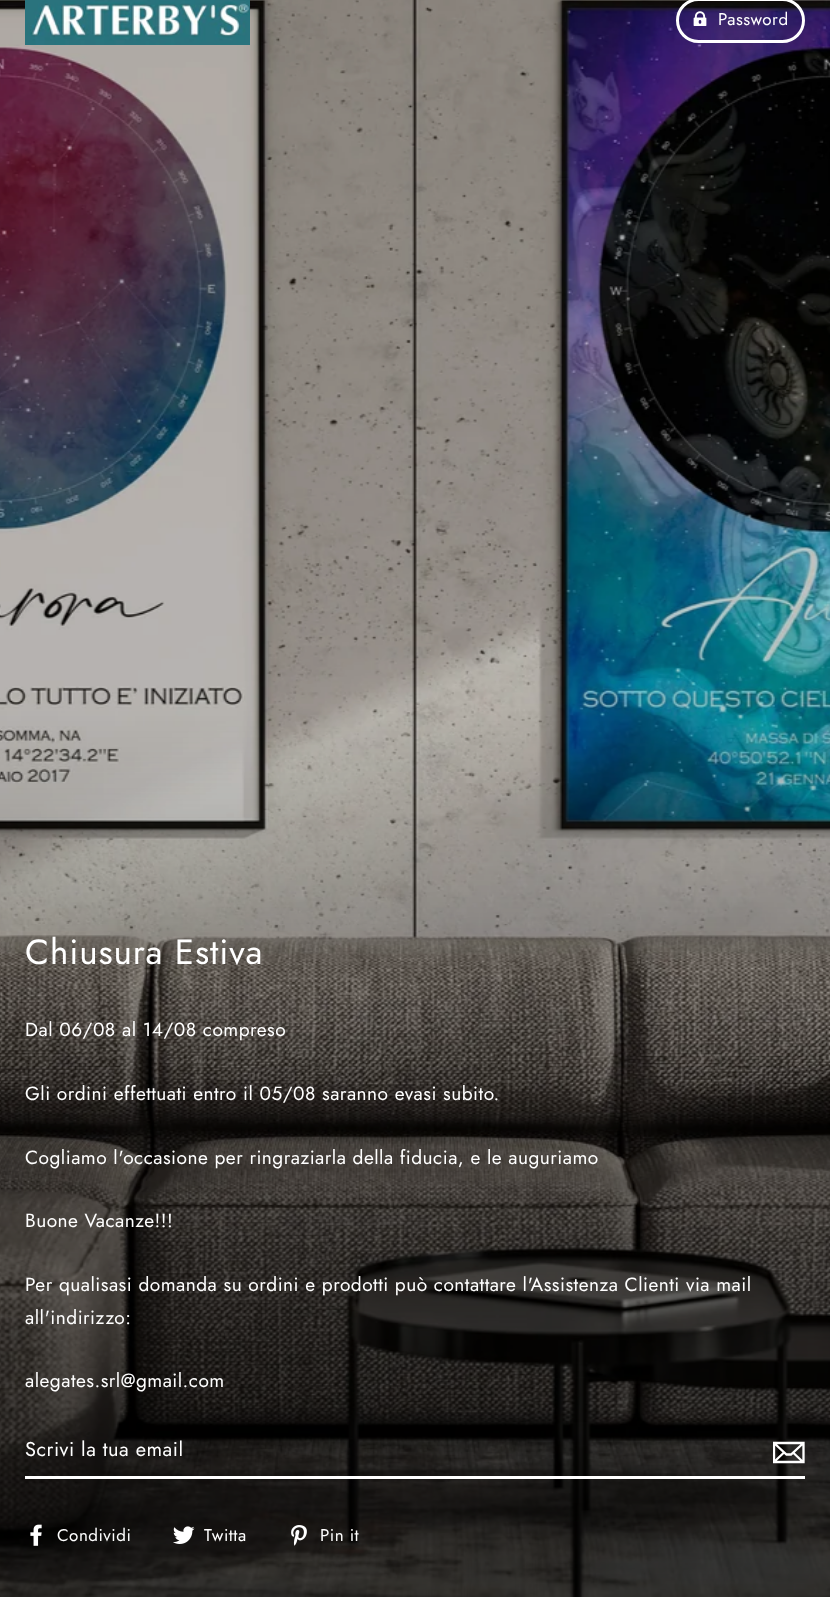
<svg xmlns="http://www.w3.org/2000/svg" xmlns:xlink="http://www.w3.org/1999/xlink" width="830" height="1597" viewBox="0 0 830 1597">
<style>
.cls-1{font:17px Jost;letter-spacing:0.48px;fill:#ffffff}
.cls-2{font:35px Jost;letter-spacing:0.9px;fill:#ffffff}
.cls-3{font:19.1px Jost;letter-spacing:0.48px;fill:#ffffff}
.cls-4{font:20px Jost;letter-spacing:0.5px;fill:#ffffff}
</style>
<defs>
<clipPath id="clip1"><rect x="773" y="1438" width="32" height="30"/></clipPath>
</defs>
<rect width="100%" height="100%" fill="#ffffff"/>
<image xlink:href="image2.png" x="0" y="0" width="830" height="1597"/>
<image xlink:href="image0.png" x="25" y="0" width="225" height="45"/>
<rect fill="none" stroke="#ffffff" stroke-width="3" x="677.5" y="-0.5" width="126" height="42" rx="21"/>
<image xlink:href="image1.png" x="693" y="11" width="14" height="15"/>
<rect fill="#ffffff" x="25" y="1476" width="780" height="3"/>
<g clip-path="url(#clip1)">
<path fill="none" stroke="#ffffff" stroke-width="2.3" d="M803.5 1462H774V1443H803.5ZM774 1443L786.5 1454.5H791L803.5 1443M784 1452.5L774.5 1461.5M803 1462L793 1452.5"/>
</g>
<image xlink:href="image3.png" x="30" y="1524" width="12" height="22"/>
<image xlink:href="image4.png" x="173" y="1526" width="22" height="18"/>
<image xlink:href="image5.png" x="291" y="1525" width="16" height="21"/>
<text class="cls-1" x="718" y="25">Password</text>
<text class="cls-2" x="25" y="964">Chiusura Estiva</text>
<text class="cls-3" x="25" y="1036">Dal 06/08 al 14/08 compreso</text>
<text class="cls-3" x="25" y="1100">Gli ordini effettuati entro il 05/08 saranno evasi subito.</text>
<text class="cls-3" x="25" y="1164">Cogliamo l'occasione per ringraziarla della fiducia, e le auguriamo</text>
<text class="cls-3" x="25" y="1227">Buone Vacanze!!!</text>
<text class="cls-3"><tspan x="25" y="1291">Per qualisasi domanda su ordini e prodotti può contattare l'Assistenza Clienti via mail</tspan><tspan x="25" y="1324">all'indirizzo:</tspan></text>
<text class="cls-3" x="25" y="1387">alegates.srl@gmail.com</text>
<text class="cls-4" x="25" y="1456">Scrivi la tua email</text>
<text class="cls-1" x="57" y="1541">Condividi</text>
<text class="cls-1" x="204" y="1541">Twitta</text>
<text class="cls-1" x="320" y="1541">Pin it</text>
</svg>
